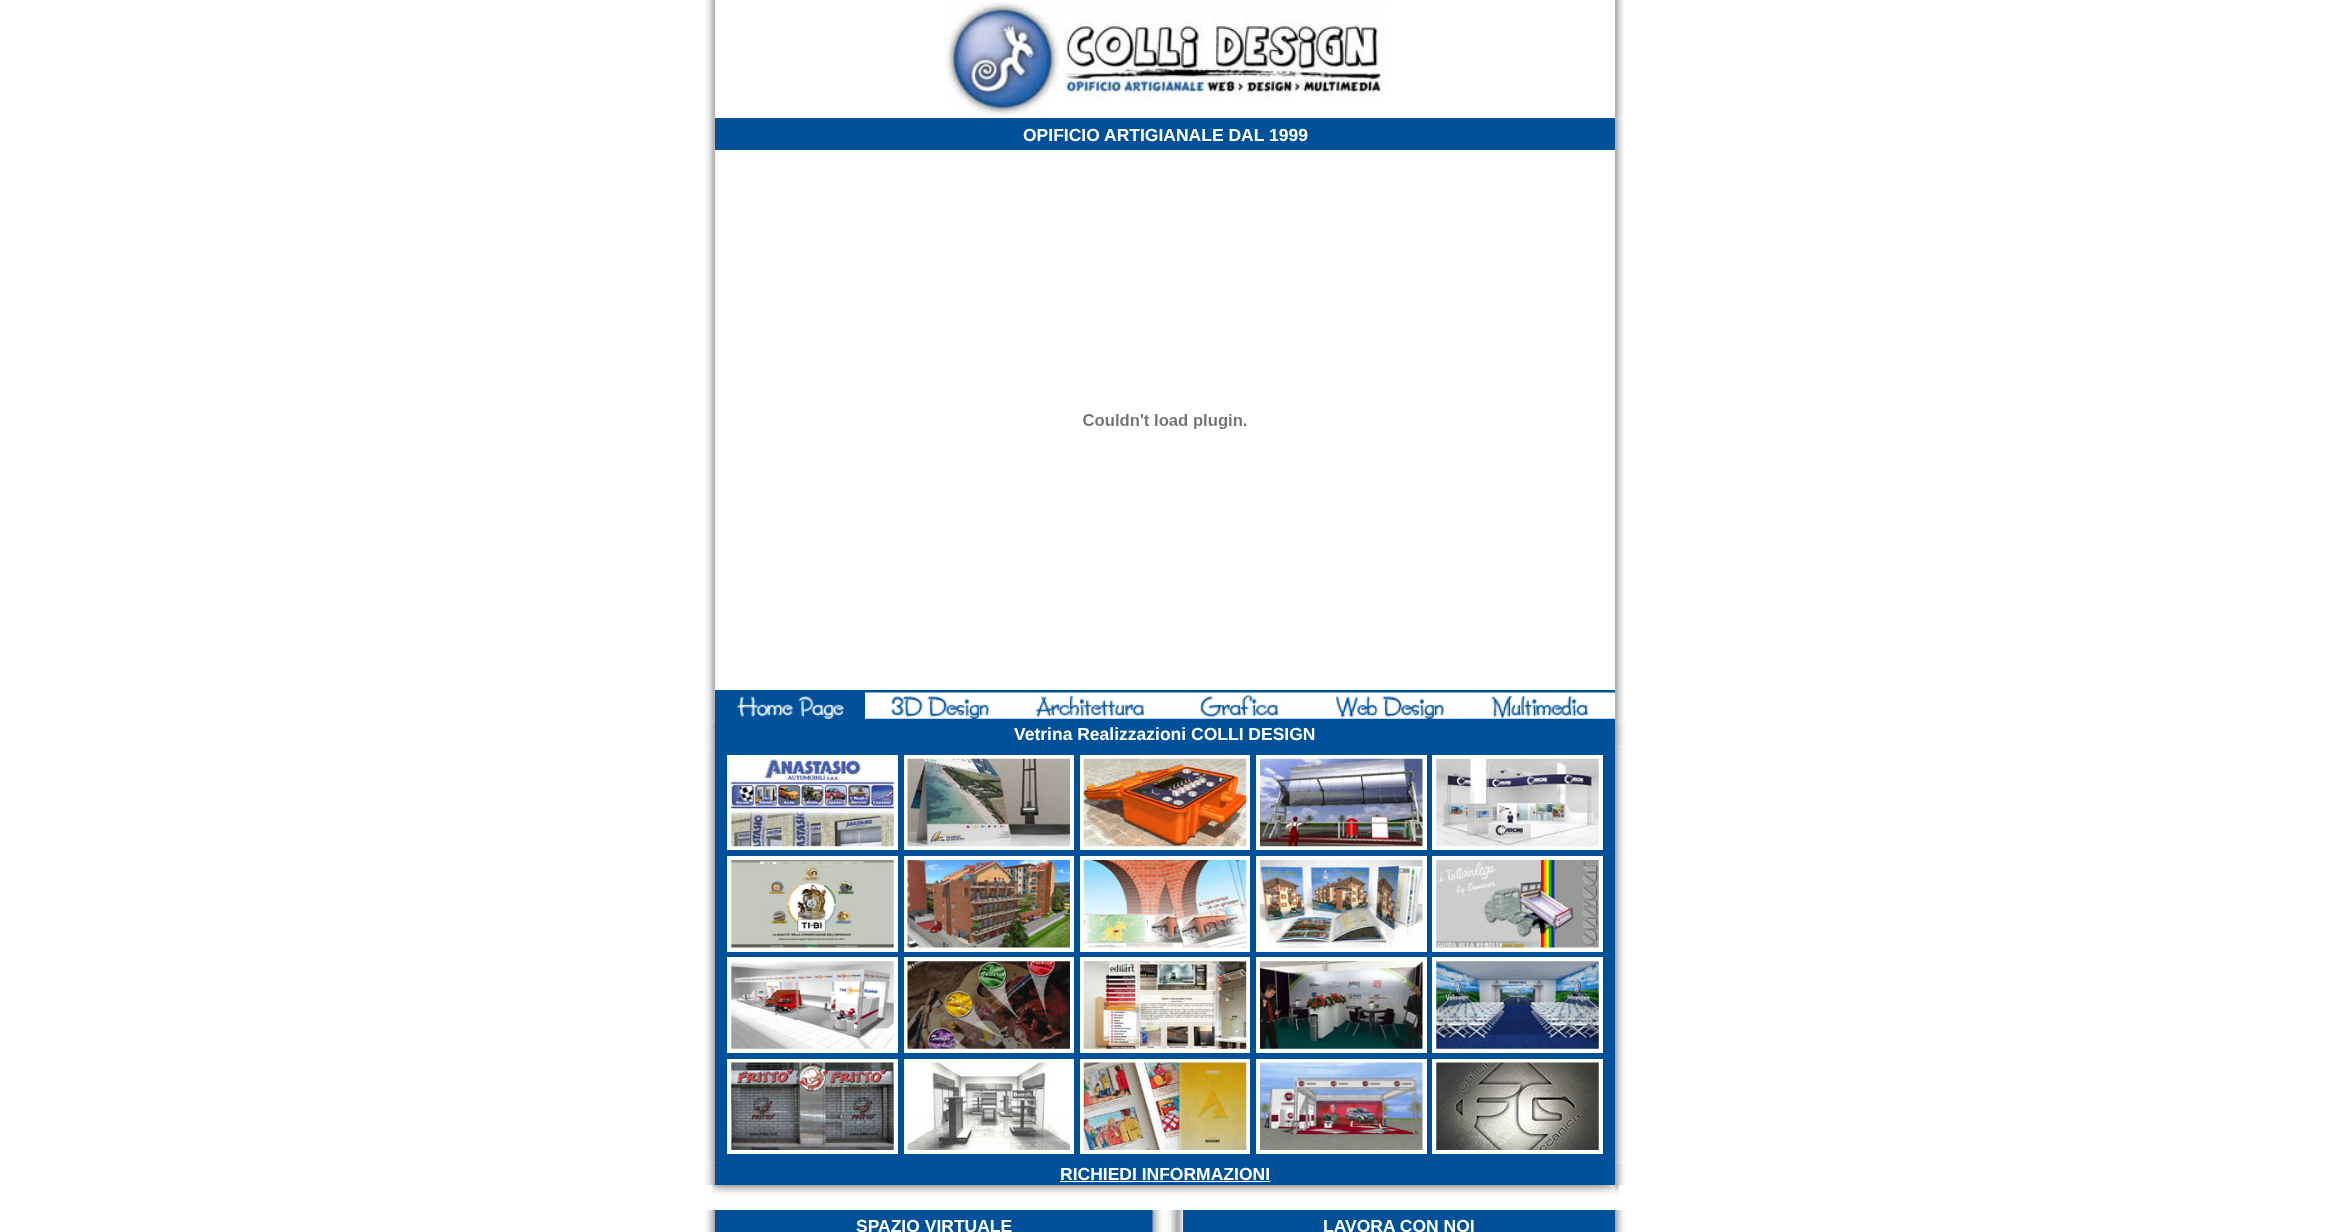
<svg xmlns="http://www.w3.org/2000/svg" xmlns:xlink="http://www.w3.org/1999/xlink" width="2330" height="1232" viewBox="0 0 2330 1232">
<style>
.cls-1{font:bold 17.5px Liberation Sans;fill:#ffffff}
</style>
<rect width="100%" height="100%" fill="#ffffff"/>
<image xlink:href="image0.png" x="705" y="0" width="919" height="119"/>
<rect fill="#ffffff" x="715" y="0" width="900" height="118"/>
<image xlink:href="image1.png" x="944" y="1" width="442" height="117"/>
<image xlink:href="image2.png" x="705" y="118" width="919" height="604"/>
<rect fill="#01519a" x="715" y="118" width="900" height="32"/>
<image xlink:href="image3.png" x="1083" y="414" width="164" height="15"/>
<rect fill="#005199" x="715" y="690" width="150" height="31"/>
<image xlink:href="image4.png" x="737" y="690" width="107" height="29"/>
<image xlink:href="image5.png" x="865" y="690" width="150" height="31"/>
<image xlink:href="image6.png" x="1015" y="690" width="150" height="31"/>
<image xlink:href="image7.png" x="1165" y="690" width="150" height="31"/>
<image xlink:href="image8.png" x="1315" y="690" width="150" height="31"/>
<image xlink:href="image9.png" x="1465" y="690" width="150" height="31"/>
<image xlink:href="image10.png" x="705" y="721" width="10" height="26"/>
<rect fill="#005199" x="715" y="721" width="900" height="464"/>
<image xlink:href="image11.png" x="1615" y="721" width="10" height="26"/>
<image xlink:href="image12.png" x="705" y="746" width="10" height="417"/>
<rect fill="#ffffff" x="727" y="755" width="171" height="95"/>
<image xlink:href="image13.png" x="731" y="758" width="163" height="89"/>
<rect fill="#ffffff" x="904" y="755" width="170" height="95"/>
<image xlink:href="image14.png" x="907" y="758" width="163" height="89"/>
<rect fill="#ffffff" x="1080" y="755" width="170" height="95"/>
<image xlink:href="image15.png" x="1083" y="758" width="164" height="89"/>
<rect fill="#ffffff" x="1256" y="755" width="171" height="95"/>
<image xlink:href="image16.png" x="1260" y="758" width="163" height="89"/>
<rect fill="#ffffff" x="1432" y="755" width="171" height="95"/>
<image xlink:href="image17.png" x="1436" y="758" width="163" height="89"/>
<rect fill="#ffffff" x="727" y="856" width="171" height="96"/>
<image xlink:href="image18.png" x="731" y="860" width="163" height="88"/>
<rect fill="#ffffff" x="904" y="856" width="170" height="96"/>
<image xlink:href="image19.png" x="907" y="860" width="163" height="88"/>
<rect fill="#ffffff" x="1080" y="856" width="170" height="96"/>
<image xlink:href="image20.png" x="1083" y="860" width="164" height="88"/>
<rect fill="#ffffff" x="1256" y="856" width="171" height="96"/>
<image xlink:href="image21.png" x="1260" y="860" width="163" height="88"/>
<rect fill="#ffffff" x="1432" y="856" width="171" height="96"/>
<image xlink:href="image22.png" x="1436" y="860" width="163" height="88"/>
<rect fill="#ffffff" x="727" y="957" width="171" height="96"/>
<image xlink:href="image23.png" x="731" y="961" width="163" height="88"/>
<rect fill="#ffffff" x="904" y="957" width="170" height="96"/>
<image xlink:href="image24.png" x="907" y="961" width="163" height="88"/>
<rect fill="#ffffff" x="1080" y="957" width="170" height="96"/>
<image xlink:href="image25.png" x="1083" y="961" width="164" height="88"/>
<rect fill="#ffffff" x="1256" y="957" width="171" height="96"/>
<image xlink:href="image26.png" x="1260" y="961" width="163" height="88"/>
<rect fill="#ffffff" x="1432" y="957" width="171" height="96"/>
<image xlink:href="image27.png" x="1436" y="961" width="163" height="88"/>
<rect fill="#ffffff" x="727" y="1059" width="171" height="95"/>
<image xlink:href="image28.png" x="731" y="1062" width="163" height="88"/>
<rect fill="#ffffff" x="904" y="1059" width="170" height="95"/>
<image xlink:href="image29.png" x="907" y="1062" width="163" height="88"/>
<rect fill="#ffffff" x="1080" y="1059" width="170" height="95"/>
<image xlink:href="image30.png" x="1083" y="1062" width="164" height="88"/>
<rect fill="#ffffff" x="1256" y="1059" width="171" height="95"/>
<image xlink:href="image31.png" x="1260" y="1062" width="163" height="88"/>
<rect fill="#ffffff" x="1432" y="1059" width="171" height="95"/>
<image xlink:href="image32.png" x="1436" y="1062" width="163" height="88"/>
<image xlink:href="image33.png" x="1615" y="746" width="10" height="417"/>
<image xlink:href="image34.png" x="705" y="1162" width="10" height="23"/>
<rect fill="#ffffff" x="1060" y="1181" width="210" height="1"/>
<image xlink:href="image35.png" x="1615" y="1162" width="10" height="23"/>
<image xlink:href="image36.png" x="712" y="1185" width="907" height="10"/>
<image xlink:href="image37.png" x="705" y="1210" width="10" height="22"/>
<rect fill="#005199" x="715" y="1210" width="438" height="22"/>
<image xlink:href="image38.png" x="1152" y="1210" width="31" height="22"/>
<rect fill="#005199" x="1183" y="1210" width="432" height="22"/>
<image xlink:href="image39.png" x="1615" y="1210" width="10" height="22"/>
<text class="cls-1" x="1023" y="141">OPIFICIO ARTIGIANALE DAL 1999</text>
<text class="cls-1" x="1014" y="740">Vetrina Realizzazioni COLLI DESIGN</text>
<text class="cls-1" x="1060" y="1180">RICHIEDI INFORMAZIONI</text>
<text class="cls-1" x="856" y="1232">SPAZIO VIRTUALE</text>
<text class="cls-1" x="1323" y="1232">LAVORA CON NOI</text>
</svg>
